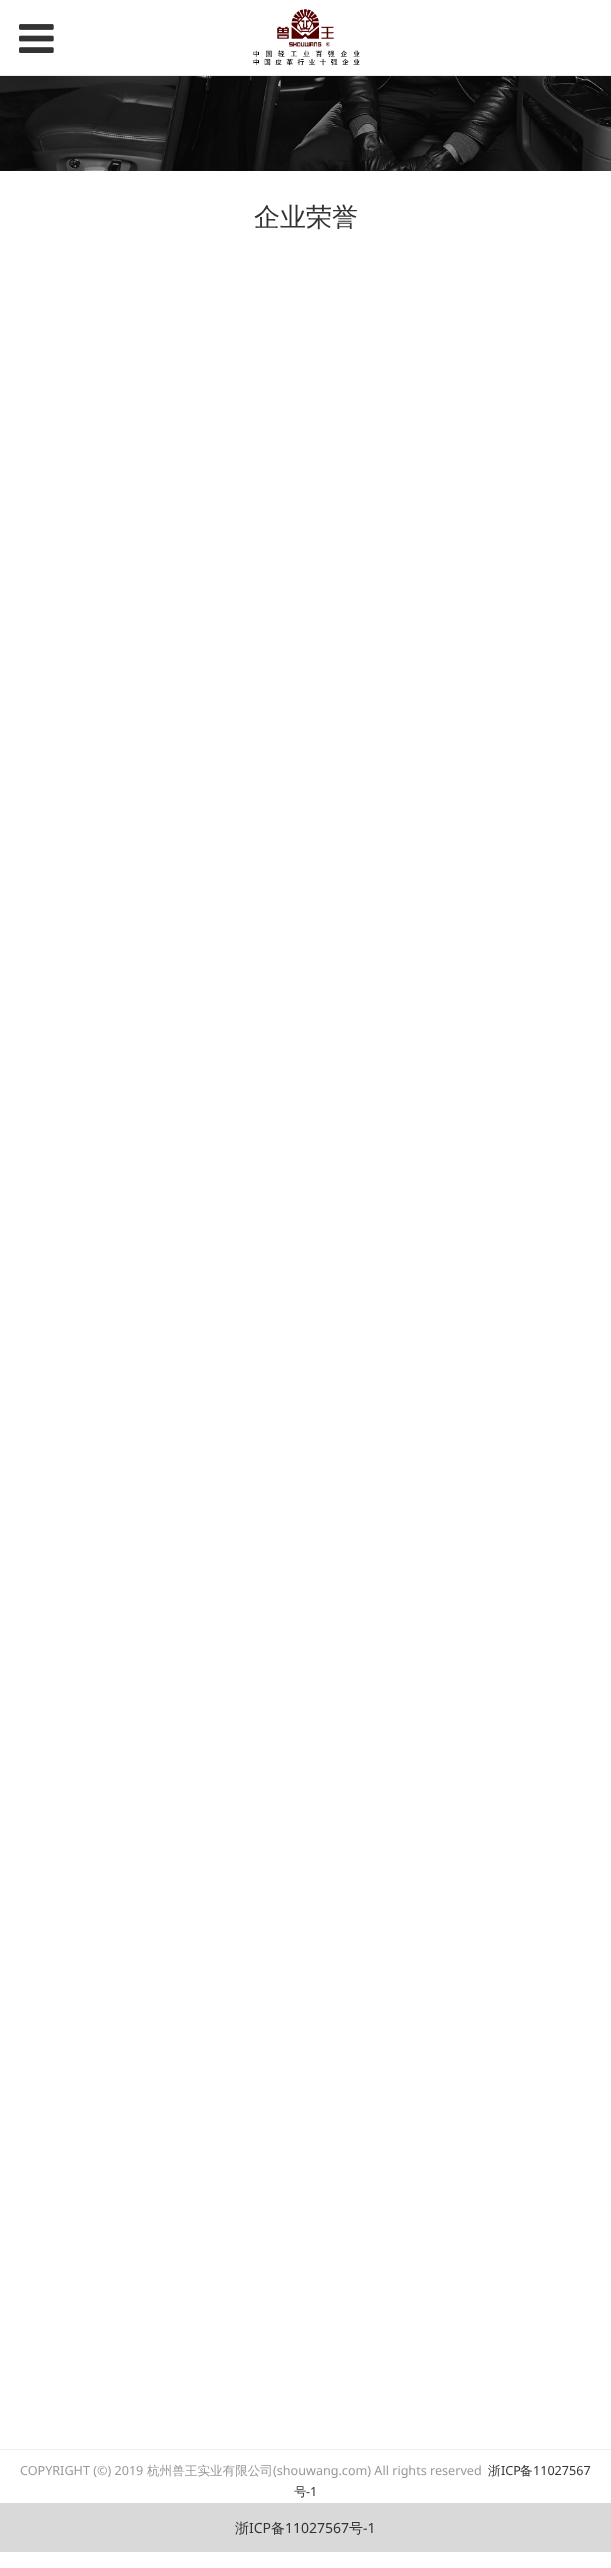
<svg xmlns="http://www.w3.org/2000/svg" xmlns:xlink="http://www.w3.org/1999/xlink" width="611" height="2568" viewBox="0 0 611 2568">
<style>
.cls-1{font:500 26px WenQuanYi Zen Hei;fill:#333333}
.cls-2{font:12.6px Noto Sans;fill:#999999}
.cls-3{font:500 12.6px WenQuanYi Zen Hei;fill:#999999}
.cls-4{font:500 12.6px WenQuanYi Zen Hei;fill:#333333}
.cls-5{font:12.6px Noto Sans;fill:#333333}
.cls-6{font:500 14px WenQuanYi Zen Hei;fill:#333333}
.cls-7{font:14px Noto Sans;fill:#333333}
</style>
<rect width="100%" height="100%" fill="#ffffff"/>
<rect fill="#ececec" x="0" y="75" width="611" height="1"/>
<image xlink:href="image0.png" x="19" y="24" width="35" height="29"/>
<image xlink:href="image1.png" x="253" y="9" width="107" height="57"/>
<image xlink:href="image2.png" x="0" y="76" width="611" height="95"/>
<rect fill="#eeeeee" x="0" y="2449" width="611" height="1"/>
<rect fill="#d9d9d9" x="0" y="2503" width="611" height="49"/>
<text class="cls-1" x="254" y="226">企业荣誉</text>
<text class="cls-2" x="20" y="2475">COPYRIGHT (©) 2019</text>
<text class="cls-3" x="147" y="2475">杭州兽王实业有限公司</text>
<text class="cls-2" x="273" y="2475">(shouwang.com) All rights reserved</text>
<text class="cls-4" x="488" y="2475">浙</text>
<text class="cls-5" x="501" y="2475">ICP</text>
<text class="cls-4" x="520" y="2475">备</text>
<text class="cls-5" x="533" y="2475">11027567</text>
<text class="cls-4" x="294" y="2496">号</text>
<text class="cls-5" x="306" y="2496">-1</text>
<text class="cls-6" x="235" y="2533">浙</text>
<text class="cls-7" x="249" y="2533">ICP</text>
<text class="cls-6" x="271" y="2533">备</text>
<text class="cls-7" x="285" y="2533">11027567</text>
<text class="cls-6" x="349" y="2533">号</text>
<text class="cls-7" x="363" y="2533">-1</text>
</svg>
